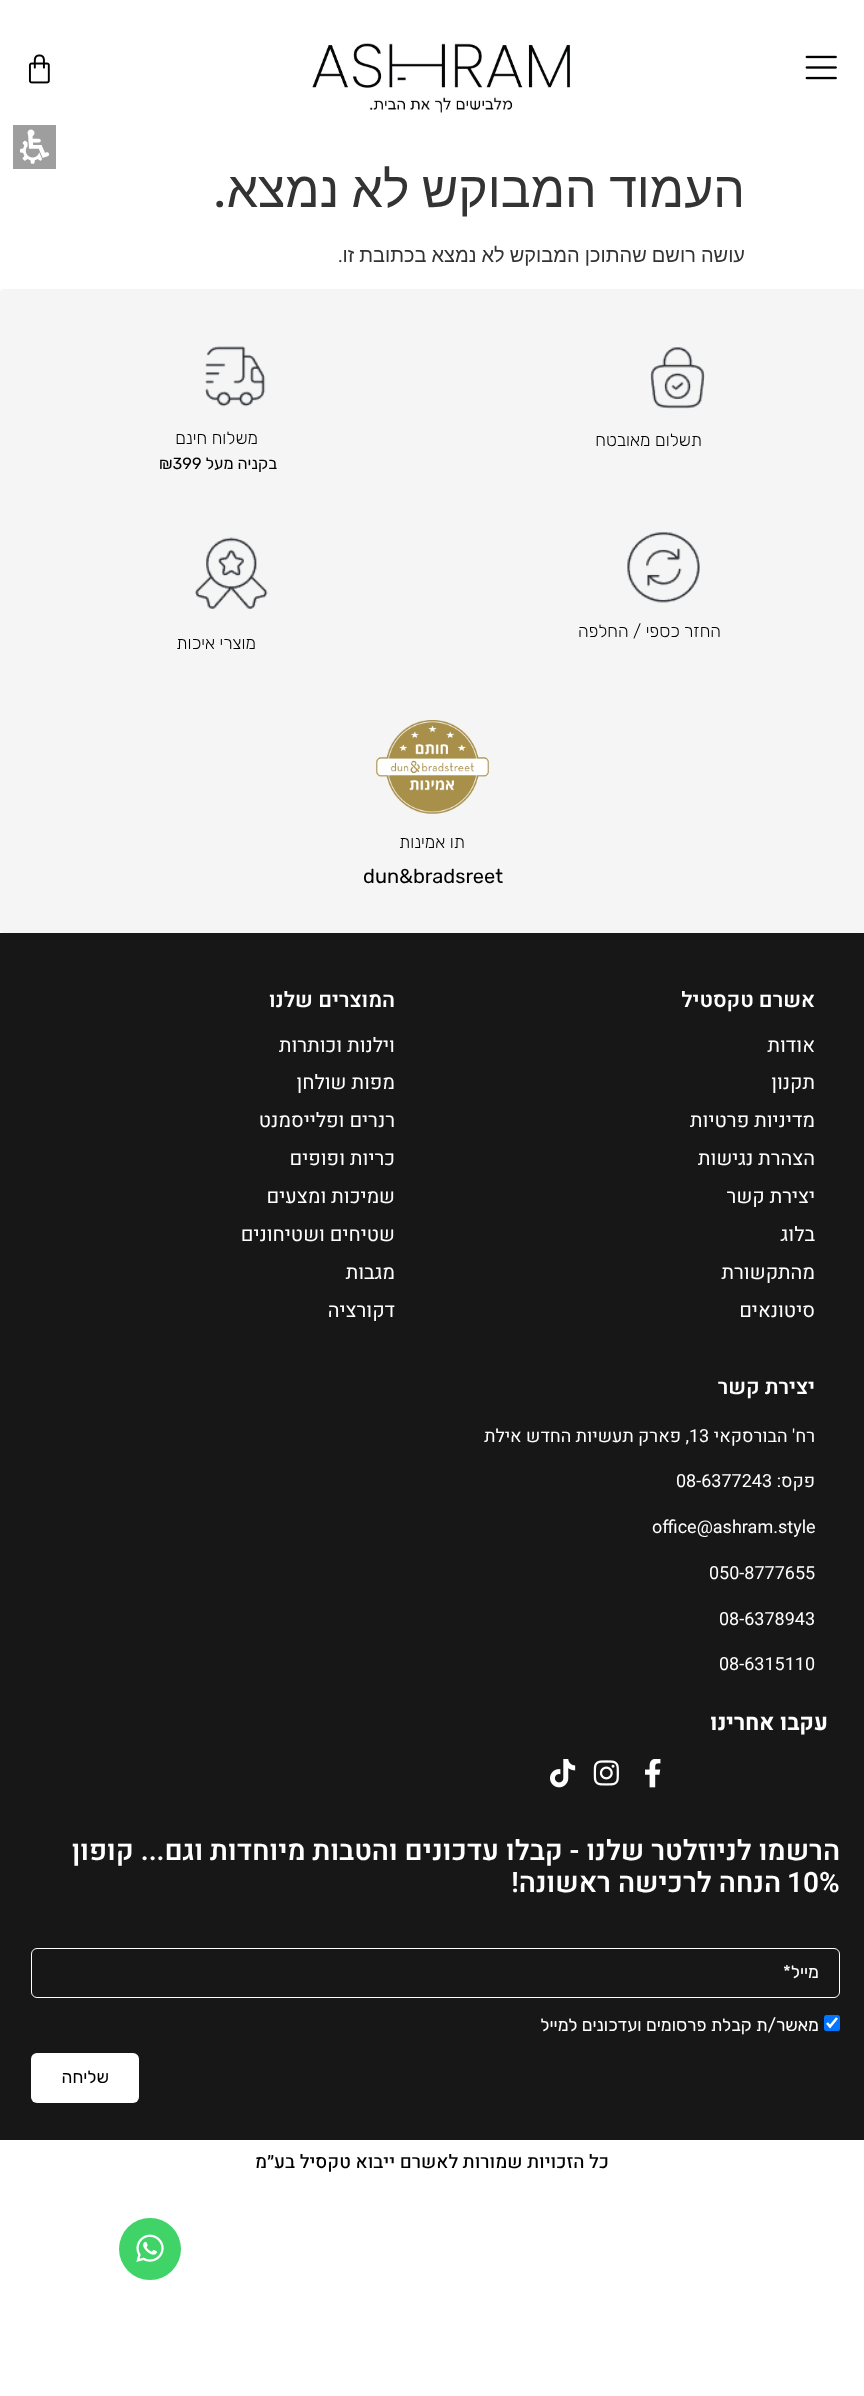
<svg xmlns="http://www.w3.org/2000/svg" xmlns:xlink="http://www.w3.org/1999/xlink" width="864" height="2396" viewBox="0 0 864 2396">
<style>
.cls-1{font:50px Liberation Sans;direction:rtl;fill:#333333}
.cls-2{font:500 50px Roboto;direction:rtl;fill:#333333}
.cls-3{font:20px Liberation Sans;direction:rtl;fill:#333333}
.cls-4{font:20px Roboto;direction:rtl;fill:#333333}
.cls-5{font:300 17.5px Rubik;direction:rtl;fill:#000000}
.cls-6{font:16.25px Rubik;direction:rtl;fill:#000000}
.cls-7{font:16.25px Rubik;fill:#000000}
.cls-8{font:20px Rubik;fill:#000000}
.cls-9{font:600 21.25px Heebo;direction:rtl;fill:#ffffff}
.cls-10{font:20px Heebo;direction:rtl;fill:#ffffff}
.cls-11{font:18px Heebo;direction:rtl;fill:#ffffff}
.cls-12{font:18px Heebo;fill:#ffffff}
.cls-13{font:bold 22.5px Heebo;direction:rtl;fill:#ffffff}
.cls-14{font:600 28px Heebo;direction:rtl;fill:#ffffff}
.cls-15{font:600 28px Heebo;fill:#ffffff}
.cls-16{font:17.5px Rubik;direction:rtl;fill:#ffffff}
.cls-17{font:17.5px Rubik;direction:rtl;fill:#000000}
.cls-18{font:500 18.75px Heebo;direction:rtl;fill:#000000}
</style>
<rect width="100%" height="100%" fill="#ffffff"/>
<image xlink:href="image0.png" x="805" y="55" width="32" height="25"/>
<image xlink:href="image1.png" x="312" y="43" width="258" height="70"/>
<image xlink:href="image2.png" x="28" y="54" width="22" height="30"/>
<circle fill="#3fd368" cx="150" cy="2249" r="31"/>
<image xlink:href="image3.png" x="136" y="2234" width="28" height="28"/>
<rect fill="#9e9e9e" x="13" y="125" width="43" height="44"/>
<image xlink:href="image4.png" x="20" y="129" width="30" height="35"/>
<rect fill="#f5f5f5" x="0" y="289" width="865" height="644" rx="4"/>
<image xlink:href="image5.png" x="650" y="347" width="55" height="62"/>
<image xlink:href="image6.png" x="205" y="346" width="61" height="61"/>
<image xlink:href="image7.png" x="627" y="532" width="73" height="71"/>
<image xlink:href="image8.png" x="195" y="537" width="73" height="72"/>
<image xlink:href="image9.png" x="376" y="720" width="113" height="94"/>
<rect fill="#171717" x="0" y="933" width="864" height="1207"/>
<image xlink:href="image10.png" x="645" y="1759" width="16" height="29"/>
<image xlink:href="image11.png" x="593" y="1760" width="26" height="26"/>
<image xlink:href="image12.png" x="550" y="1759" width="26" height="29"/>
<rect fill="none" stroke="#ffffff" x="31.5" y="1948.5" width="808" height="49" rx="5.5"/>
<rect fill="#0075ff" x="824" y="2015" width="16" height="16" rx="2.5"/>
<path fill="none" stroke="#ffffff" stroke-width="2.6" d="M827 2023L830 2026.5L837 2018"/>
<rect fill="#ffffff" x="31" y="2053" width="108" height="50" rx="6"/>
<text class="cls-1" x="745" y="207" word-spacing="-1.5">העמוד המבוקש לא נמצא</text>
<text class="cls-2" x="227" y="207">.</text>
<text class="cls-3" x="745" y="262" word-spacing="-0.5">עושה רושם שהתוכן המבוקש לא נמצא בכתובת זו</text>
<text class="cls-4" x="343" y="262">.</text>
<text class="cls-5" x="702" y="446">תשלום מאובטח</text>
<text class="cls-5" x="258" y="444">משלוח חינם</text>
<text class="cls-6" x="277" y="469">בקניה מעל</text>
<text class="cls-7" x="159" y="469">₪399</text>
<text class="cls-5" x="721" y="637">החזר כספי / החלפה</text>
<text class="cls-5" x="256" y="649">מוצרי איכות</text>
<text class="cls-5" x="465" y="848">תו אמינות</text>
<text class="cls-8" x="363" y="883">dun&amp;bradsreet</text>
<text class="cls-9" x="815" y="1007">אשרם טקסטיל</text>
<text class="cls-10"><tspan x="815" y="1052">אודות</tspan><tspan x="815" y="1089">תקנון</tspan><tspan x="815" y="1127">מדיניות פרטיות</tspan><tspan x="815" y="1165">הצהרת נגישות</tspan><tspan x="815" y="1203">יצירת קשר</tspan><tspan x="815" y="1241">בלוג</tspan><tspan x="815" y="1279">מהתקשורת</tspan><tspan x="815" y="1317">סיטונאים</tspan></text>
<text class="cls-9" x="395" y="1007">המוצרים שלנו</text>
<text class="cls-10"><tspan x="395" y="1052">וילנות וכותרות</tspan><tspan x="395" y="1089">מפות שולחן</tspan><tspan x="395" y="1127">רנרים ופלייסמנט</tspan><tspan x="395" y="1165">כריות ופופים</tspan><tspan x="395" y="1203">שמיכות ומצעים</tspan><tspan x="395" y="1241">שטיחים ושטיחונים</tspan><tspan x="395" y="1279">מגבות</tspan><tspan x="395" y="1317">דקורציה</tspan></text>
<text class="cls-9" x="815" y="1394">יצירת קשר</text>
<text class="cls-11" x="815" y="1442">רח' הבורסקאי</text>
<text class="cls-12" x="689" y="1442">13</text>
<text class="cls-11" x="689" y="1442">, פארק תעשיות החדש אילת</text>
<text class="cls-11" x="815" y="1487">פקס:</text>
<text class="cls-12" x="676" y="1487">08-6377243</text>
<text class="cls-12" x="652" y="1533">office@ashram.style</text>
<text class="cls-12" x="709" y="1579">050-8777655</text>
<text class="cls-12" x="719" y="1625">08-6378943</text>
<text class="cls-12" x="719" y="1670">08-6315110</text>
<text class="cls-13" x="828" y="1730">עקבו אחרינו</text>
<text class="cls-14" x="840" y="1860">הרשמו לניוזלטר שלנו - קבלו עדכונים והטבות מיוחדות וגם... קופון</text>
<text class="cls-15" x="787" y="1892">10%</text>
<text class="cls-14" x="781" y="1892">הנחה לרכישה ראשונה!</text>
<text class="cls-16" x="819" y="1978">מייל*</text>
<text class="cls-16" x="819" y="2031">מאשר/ת קבלת פרסומים ועדכונים למייל</text>
<text class="cls-17" x="109" y="2083">שליחה</text>
<text class="cls-18" x="609" y="2168">כל הזכויות שמורות לאשרם ייבוא טקסיל בע״מ</text>
</svg>
